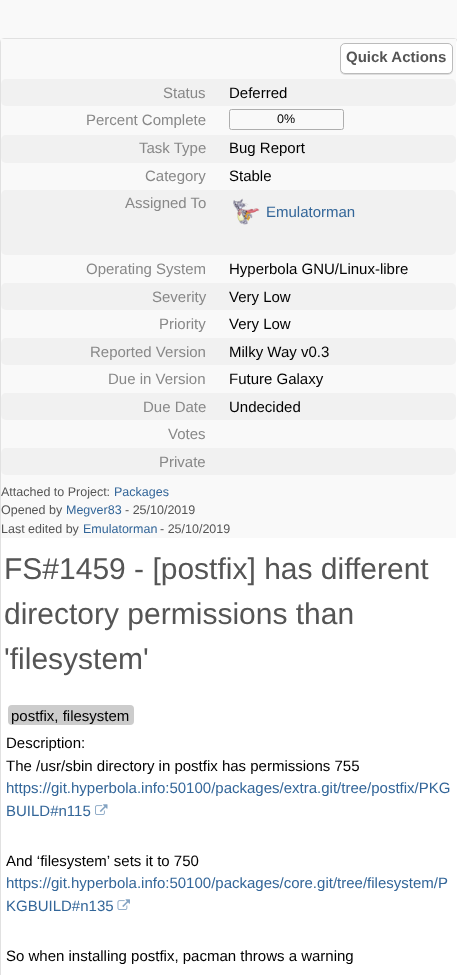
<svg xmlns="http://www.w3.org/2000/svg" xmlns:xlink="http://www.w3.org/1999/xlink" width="457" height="975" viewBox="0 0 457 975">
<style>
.cls-1{font:bold 15px Liberation Sans;fill:#555555}
.cls-2{font:15px Liberation Sans;fill:#888888}
.cls-3{font:15px Liberation Sans;fill:#000000}
.cls-4{font:12.5px Liberation Sans;fill:#000000}
.cls-5{font:15px Liberation Sans;fill:#336699}
.cls-6{font:12.5px Liberation Sans;fill:#555555}
.cls-7{font:12.5px Liberation Sans;fill:#336699}
.cls-8{font:30px Liberation Sans;fill:#555555}
</style>
<rect width="100%" height="100%" fill="#f9f9f9"/>
<rect fill="#ffffff" stroke="#e1e1e1" x="0.5" y="38.5" width="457" height="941" rx="3.5"/>
<rect fill="#f9f9f9" x="1" y="39" width="455" height="499"/>
<rect fill="#dddddd" filter="blur(0.5px)" x="340" y="44" width="113" height="31" rx="5"/>
<rect fill="#ffffff" stroke="#bbbbbb" x="340.5" y="43.5" width="112" height="30" rx="4.5"/>
<rect fill="#f1f1f1" x="1" y="79" width="455" height="27" rx="5"/>
<rect fill="none" stroke="#aeaeae" x="229.5" y="109.5" width="114" height="20" rx="2"/>
<rect fill="#f1f1f1" x="1" y="135" width="455" height="28" rx="5"/>
<rect fill="#f1f1f1" x="1" y="190" width="455" height="65" rx="5"/>
<image xlink:href="image0.png" x="233" y="198" width="27" height="27"/>
<rect fill="#f1f1f1" x="1" y="283" width="455" height="27" rx="5"/>
<rect fill="#f1f1f1" x="1" y="338" width="455" height="27" rx="5"/>
<rect fill="#f1f1f1" x="1" y="393" width="455" height="27" rx="5"/>
<rect fill="#f1f1f1" x="1" y="448" width="455" height="27" rx="5"/>
<rect fill="#cccccc" x="8" y="705" width="126" height="20" rx="4"/>
<image xlink:href="image1.png" x="95" y="804" width="13" height="11"/>
<image xlink:href="image2.png" x="117" y="899" width="13" height="11"/>
<text class="cls-1" x="346" y="62">Quick Actions</text>
<text class="cls-2" x="163" y="98">Status</text>
<text class="cls-3" x="229" y="98">Deferred</text>
<text class="cls-2" x="86" y="125">Percent Complete</text>
<text class="cls-4" x="277" y="123">0%</text>
<text class="cls-2" x="139" y="153">Task Type</text>
<text class="cls-3" x="229" y="153">Bug Report</text>
<text class="cls-2" x="145" y="181">Category</text>
<text class="cls-3" x="229" y="181">Stable</text>
<text class="cls-2" x="125" y="208">Assigned To</text>
<text class="cls-5" x="266" y="217">Emulatorman</text>
<text class="cls-2" x="86" y="274">Operating System</text>
<text class="cls-3" x="229" y="274">Hyperbola GNU/Linux-libre</text>
<text class="cls-2" x="152" y="302">Severity</text>
<text class="cls-3" x="229" y="302">Very Low</text>
<text class="cls-2" x="159" y="329">Priority</text>
<text class="cls-3" x="229" y="329">Very Low</text>
<text class="cls-2" x="90" y="357">Reported Version</text>
<text class="cls-3" x="229" y="357">Milky Way v0.3</text>
<text class="cls-2" x="108" y="384">Due in Version</text>
<text class="cls-3" x="229" y="384">Future Galaxy</text>
<text class="cls-2" x="143" y="412">Due Date</text>
<text class="cls-3" x="229" y="412">Undecided</text>
<text class="cls-2" x="168" y="439">Votes</text>
<text class="cls-2" x="159" y="467">Private</text>
<text class="cls-6" x="1" y="496">Attached to Project:</text>
<text class="cls-7" x="114" y="496">Packages</text>
<text class="cls-6" x="1" y="514">Opened by</text>
<text class="cls-7" x="66" y="514">Megver83</text>
<text class="cls-6" x="125" y="514">- 25/10/2019</text>
<text class="cls-6" x="1" y="533">Last edited by</text>
<text class="cls-7" x="83" y="533">Emulatorman</text>
<text class="cls-6" x="160" y="533">- 25/10/2019</text>
<text class="cls-8"><tspan x="4" y="579">FS#1459 - [postfix] has different</tspan><tspan x="4" y="624">directory permissions than</tspan><tspan x="4" y="669">'filesystem'</tspan></text>
<text class="cls-3" x="11" y="721">postfix, filesystem</text>
<text class="cls-3"><tspan x="6" y="748">Description:</tspan><tspan x="6" y="771">The /usr/sbin directory in postfix has permissions 755</tspan></text>
<text class="cls-5"><tspan x="6" y="793">https://git.hyperbola.info:50100/packages/extra.git/tree/postfix/PKG</tspan><tspan x="6" y="816">BUILD#n115</tspan></text>
<text class="cls-3" x="6" y="866">And ‘filesystem’ sets it to 750</text>
<text class="cls-5"><tspan x="6" y="888">https://git.hyperbola.info:50100/packages/core.git/tree/filesystem/P</tspan><tspan x="6" y="911">KGBUILD#n135</tspan></text>
<text class="cls-3" x="6" y="961">So when installing postfix, pacman throws a warning</text>
</svg>
